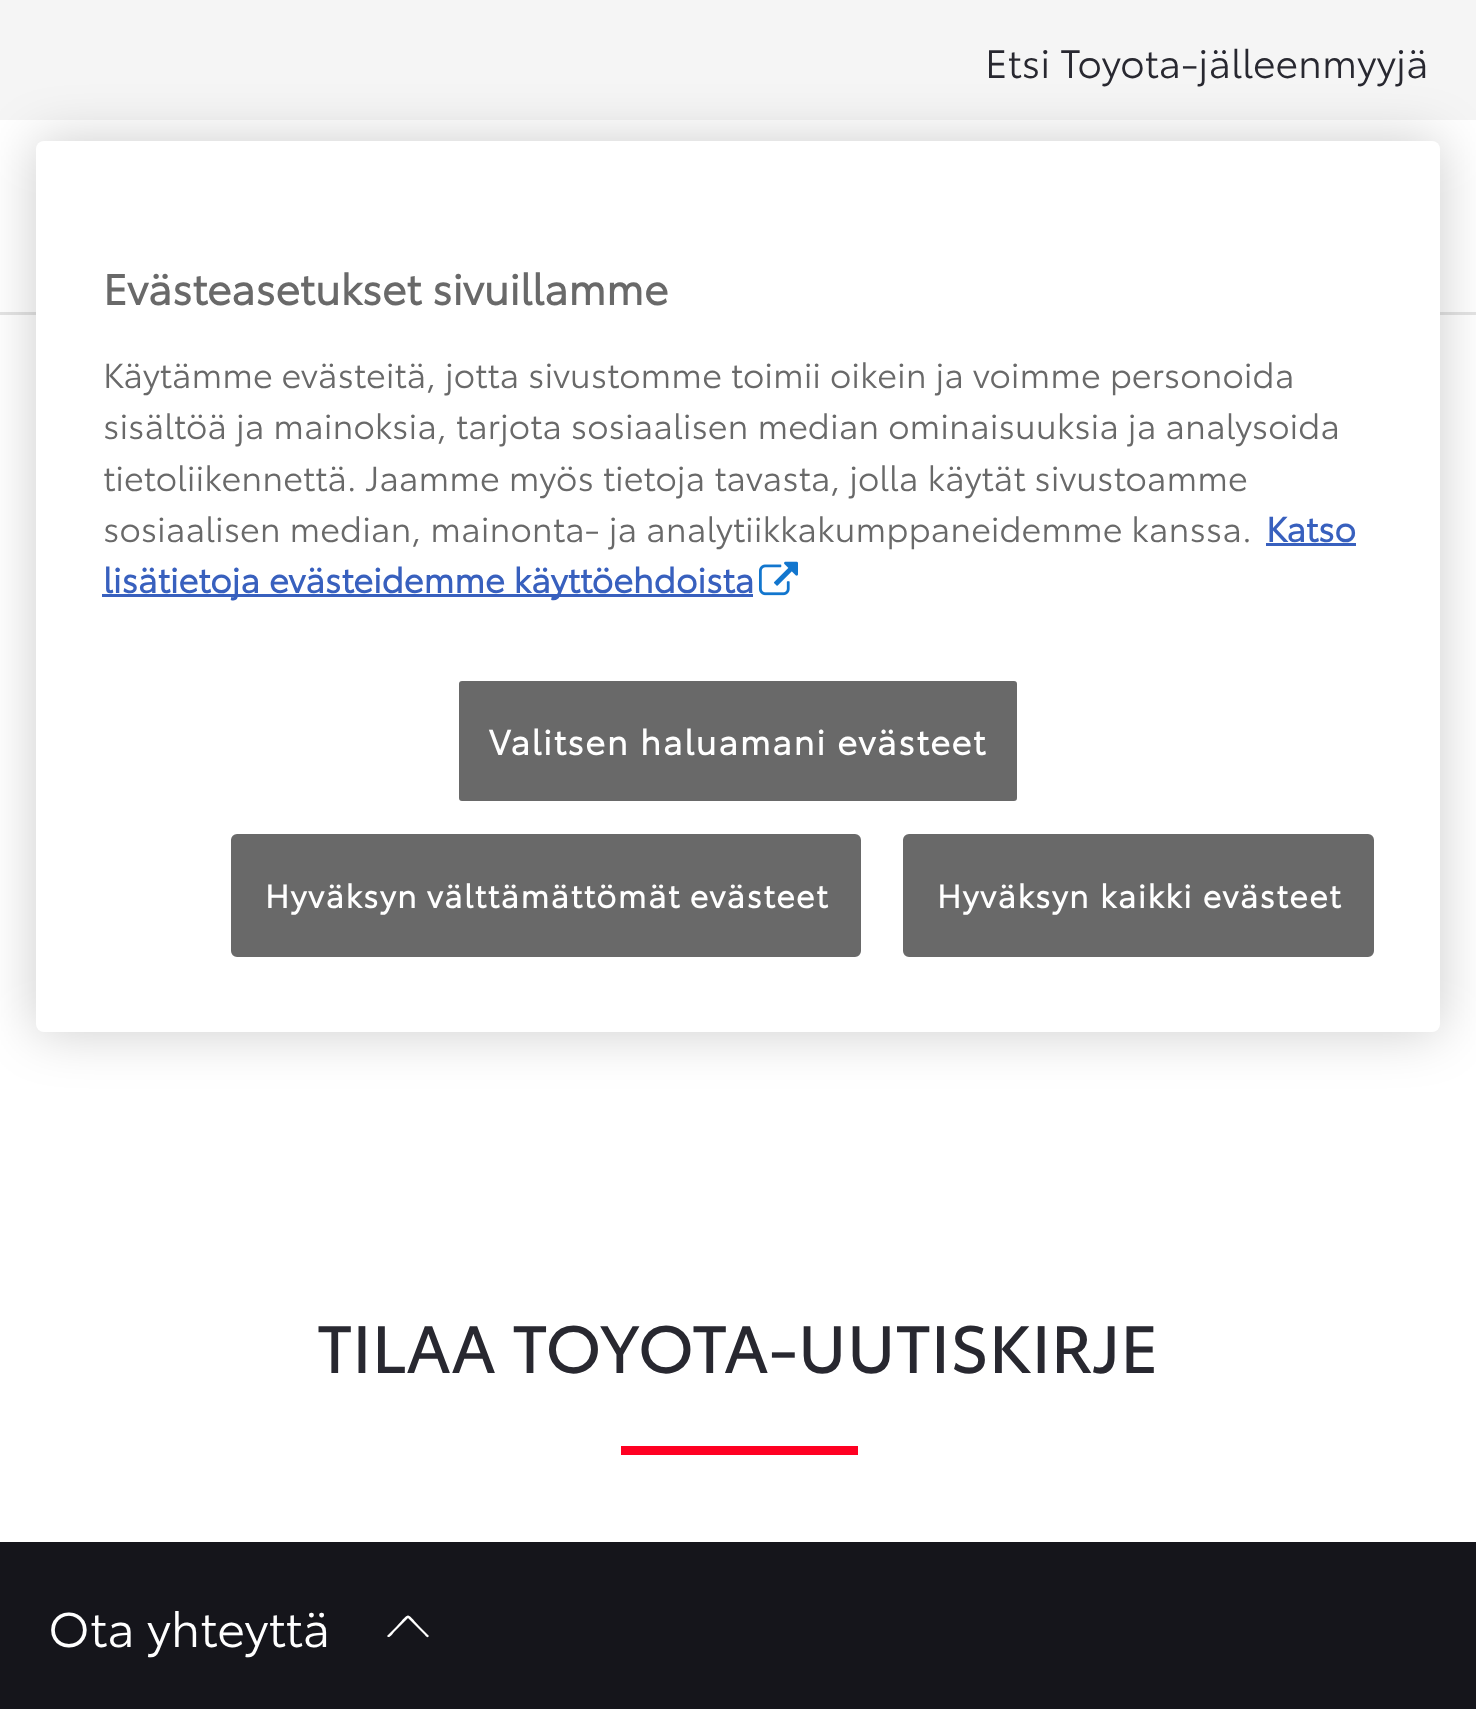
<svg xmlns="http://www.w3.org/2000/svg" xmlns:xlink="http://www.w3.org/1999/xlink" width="1476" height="1709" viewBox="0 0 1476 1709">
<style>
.cls-1{font:39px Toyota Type;fill:#282830}
.cls-2{font:bold 42px Toyota Type;fill:#696969}
.cls-3{font:34.15px Toyota Type;fill:#696969}
.cls-4{font:bold 34.15px Toyota Type;fill:#3860be}
.cls-5{font:bold 34.15px Toyota Type;letter-spacing:1.7px;fill:#ffffff}
.cls-6{font:bold 31.75px Toyota Type;letter-spacing:1.6px;fill:#ffffff}
.cls-7{font:66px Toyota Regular;fill:#282830}
.cls-8{font:48px Toyota Type;fill:#ffffff}
</style>
<rect width="100%" height="100%" fill="#ffffff"/>
<rect fill="#f5f5f5" x="0" y="0" width="1476" height="120"/>
<rect fill="#e4e4e4" x="0" y="312" width="1476" height="3"/>
<rect fill="#000000" fill-opacity="0.2" filter="blur(27px)" x="36" y="141" width="1404" height="891" rx="8"/>
<rect fill="#ffffff" x="36" y="141" width="1404" height="891" rx="8"/>
<rect fill="#3860be" x="1266" y="543" width="90" height="3"/>
<rect fill="#3860be" x="102" y="594" width="651" height="3"/>
<image xlink:href="image0.png" x="759" y="561" width="39" height="35"/>
<rect fill="#696969" stroke="#ffffff" stroke-width="3" x="457.5" y="679.5" width="561" height="123" rx="4.5"/>
<rect fill="#696969" stroke="#696969" stroke-width="3" x="232.5" y="835.5" width="627" height="120" rx="4.5"/>
<rect fill="#696969" stroke="#696969" stroke-width="3" x="904.5" y="835.5" width="468" height="120" rx="4.5"/>
<rect fill="#ff0022" x="621" y="1446" width="237" height="9"/>
<rect fill="#15151b" x="0" y="1542" width="1476" height="167"/>
<path fill="#ffffff" d="M387 1636L388 1637C390 1638 394 1632 395 1631L408 1618L424 1634C425 1635 427 1638 428 1637L429 1636L419 1626C406 1612 410 1612 397 1626Z"/>
<text class="cls-1" x="985" y="78">Etsi Toyota-jälleenmyyjä</text>
<text class="cls-2" x="103" y="305">Evästeasetukset sivuillamme</text>
<text class="cls-3"><tspan x="103" y="388">Käytämme evästeitä, jotta sivustomme toimii oikein ja voimme personoida</tspan><tspan x="103" y="439">sisältöä ja mainoksia, tarjota sosiaalisen median ominaisuuksia ja analysoida</tspan><tspan x="103" y="491">tietoliikennettä. Jaamme myös tietoja tavasta, jolla käytät sivustoamme</tspan><tspan x="103" y="542">sosiaalisen median, mainonta- ja analytiikkakumppaneidemme kanssa.</tspan></text>
<text class="cls-4" x="1266" y="542">Katso</text>
<text class="cls-4" x="103" y="593">lisätietoja evästeidemme käyttöehdoista</text>
<text class="cls-5" x="489" y="755">Valitsen haluamani evästeet</text>
<text class="cls-6" x="265" y="908" word-spacing="-1">Hyväksyn välttämättömät evästeet</text>
<text class="cls-6" x="937" y="908">Hyväksyn kaikki evästeet</text>
<text class="cls-7" x="317" y="1373">TILAA TOYOTA-UUTISKIRJE</text>
<text class="cls-8" x="48" y="1647">Ota yhteyttä</text>
</svg>
